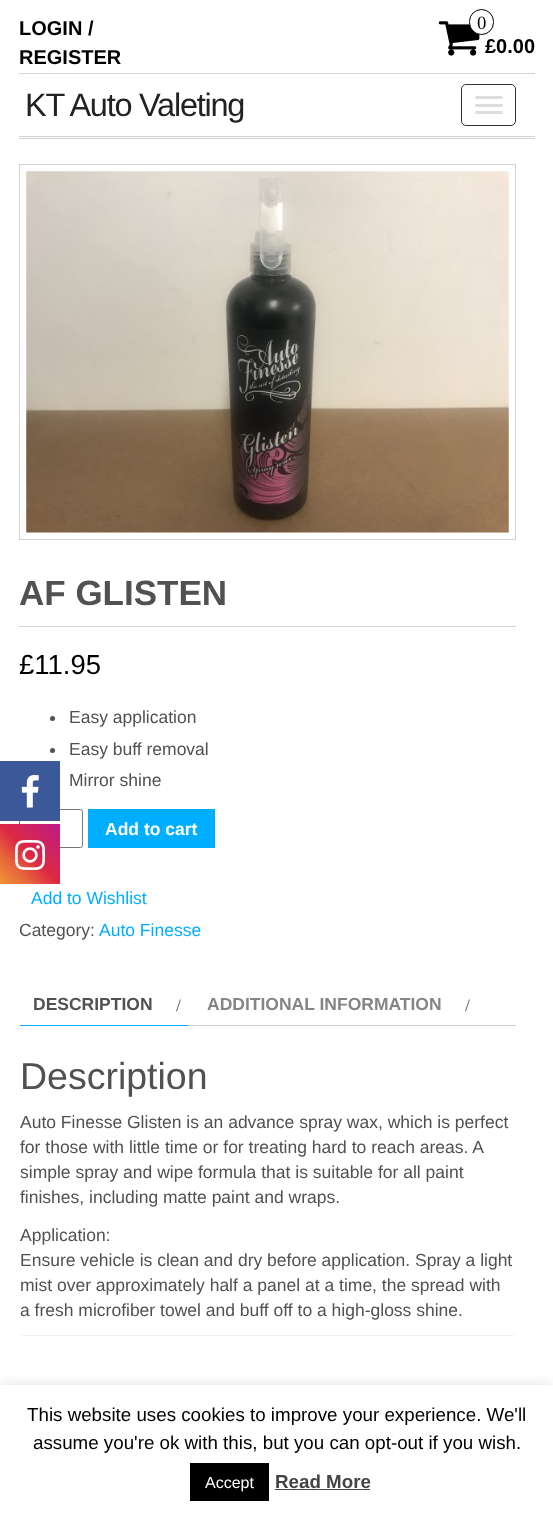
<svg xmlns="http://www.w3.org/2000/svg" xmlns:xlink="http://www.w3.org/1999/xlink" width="553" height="1516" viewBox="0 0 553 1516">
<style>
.cls-1{font:bold 20px Liberation Sans;fill:#000000}
.cls-2{font:18.75px Liberation Serif;fill:#000000}
.cls-3{font:32.5px Liberation Sans;letter-spacing:-1.25px;fill:#222222}
.cls-4{font:bold 35px Liberation Sans;fill:#515151}
.cls-5{font:27.5px Liberation Sans;fill:#000000}
.cls-6{font:17.5px Liberation Sans;fill:#515151}
.cls-7{font:bold 17.5px Liberation Sans;fill:#ffffff}
.cls-8{font:17.5px Liberation Sans;fill:#00aeff}
.cls-9{font:bold 17.5px Liberation Sans;fill:#515151}
.cls-10{font:17.5px Liberation Serif;fill:#515151}
.cls-11{font:bold 17.5px Liberation Sans;fill:#858585}
.cls-12{font:37.5px Liberation Sans;fill:#515151}
.cls-13{font:18.75px Liberation Sans;fill:#000000}
.cls-14{font:16px Liberation Sans;fill:#ffffff}
.cls-15{font:bold 18.75px Liberation Sans;fill:#444444}
</style>
<defs>
<linearGradient id="g1" gradientUnits="userSpaceOnUse" x1="0" y1="884" x2="60" y2="824"><stop offset="0" stop-color="#f09433"/><stop offset="0.25" stop-color="#e6683c"/><stop offset="0.5" stop-color="#dc2743"/><stop offset="0.75" stop-color="#cc2366"/><stop offset="1" stop-color="#bc1888"/></linearGradient>
</defs>
<rect width="100%" height="100%" fill="#ffffff"/>
<image xlink:href="image0.png" x="438" y="21" width="42" height="35"/>
<rect fill="#ffffff" stroke="#000000" x="469.5" y="9.5" width="24" height="25" rx="12"/>
<rect fill="#d3d3d3" x="19" y="138" width="516" height="1"/>
<rect fill="#d3d3d3" x="19" y="73" width="516" height="1"/>
<rect fill="#d3d3d3" x="19" y="136" width="516" height="1"/>
<rect fill="none" stroke="#333333" x="461.5" y="84.5" width="54" height="41" rx="4.5"/>
<rect fill="#dddddd" x="475" y="96" width="28" height="3" rx="1.5"/>
<rect fill="#dddddd" x="475" y="104" width="28" height="3" rx="1.5"/>
<rect fill="#dddddd" x="475" y="111" width="28" height="3" rx="1.5"/>
<rect fill="none" stroke="#d3d3d3" x="19.5" y="164.5" width="496" height="375"/>
<image xlink:href="image1.png" x="26" y="171" width="483" height="362"/>
<rect fill="#d3d3d3" x="19" y="626" width="497" height="1"/>
<circle fill="#515151" cx="52.5" cy="718.5" r="2.5"/>
<circle fill="#515151" cx="52.5" cy="750.5" r="2.5"/>
<rect fill="none" stroke="#767676" x="19.5" y="809.5" width="63" height="38" rx="2"/>
<rect fill="#00aeff" x="88" y="809" width="127" height="39"/>
<rect fill="#00aeff" x="19" y="1025" width="169" height="1"/>
<rect fill="#ffffff" x="19" y="1025" width="1" height="1"/>
<rect fill="#d3ced2" x="188" y="1025" width="328" height="1"/>
<rect fill="#000000" fill-opacity="0.05" filter="blur(0.5px)" x="19" y="1055" width="497" height="281" rx="5"/>
<rect fill="#ffffff" x="19" y="1054" width="497" height="281" rx="5"/>
<rect fill="#3b5998" x="0" y="761" width="60" height="60"/>
<image xlink:href="image2.png" x="21" y="775" width="18" height="33"/>
<rect fill="url(#g1)" x="0" y="824" width="60" height="60"/>
<image xlink:href="image3.png" x="15" y="840" width="30" height="30"/>
<rect fill="#acabab" fill-opacity="0.3" filter="blur(6px)" x="0" y="1384" width="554" height="131"/>
<rect fill="#ffffff" x="0" y="1385" width="553" height="131"/>
<rect fill="#000000" x="190" y="1463" width="79" height="38"/>
<rect fill="#444444" x="275" y="1489" width="95" height="1"/>
<text class="cls-1"><tspan x="19" y="35">LOGIN /</tspan><tspan x="19" y="64">REGISTER</tspan></text>
<text class="cls-2" x="477" y="29">0</text>
<text class="cls-1" x="485" y="53">£0.00</text>
<text class="cls-3" x="25" y="116">KT Auto Valeting</text>
<text class="cls-4" x="19" y="605">AF GLISTEN</text>
<text class="cls-5" x="19" y="674">£11.95</text>
<text class="cls-6"><tspan x="69" y="723">Easy application</tspan><tspan x="69" y="755">Easy buff removal</tspan><tspan x="69" y="786">Mirror shine</tspan></text>
<text class="cls-7" x="105" y="835">Add to cart</text>
<text class="cls-8" x="31" y="904">Add to Wishlist</text>
<text class="cls-6" x="19" y="936">Category:</text>
<text class="cls-8" x="99" y="936">Auto Finesse</text>
<text class="cls-9" x="33" y="1010">DESCRIPTION</text>
<text class="cls-10" x="176" y="1011">/</text>
<text class="cls-11" x="207" y="1010">ADDITIONAL INFORMATION</text>
<text class="cls-10" x="465" y="1011">/</text>
<text class="cls-12" x="20" y="1089">Description</text>
<text class="cls-6"><tspan x="20" y="1128">Auto Finesse Glisten is an advance spray wax, which is perfect</tspan><tspan x="20" y="1153">for those with little time or for treating hard to reach areas. A</tspan><tspan x="20" y="1178">simple spray and wipe formula that is suitable for all paint</tspan><tspan x="20" y="1203">finishes, including matte paint and wraps.</tspan></text>
<text class="cls-6"><tspan x="20" y="1241">Application:</tspan><tspan x="20" y="1266">Ensure vehicle is clean and dry before application. Spray a light</tspan><tspan x="20" y="1291">mist over approximately half a panel at a time, the spread with</tspan><tspan x="20" y="1316">a fresh microfiber towel and buff off to a high-gloss shine.</tspan></text>
<text class="cls-13" x="27" y="1421">This website uses cookies to improve your experience. We'll</text>
<text class="cls-13" x="33" y="1449">assume you're ok with this, but you can opt-out if you wish.</text>
<text class="cls-14" x="205" y="1488">Accept</text>
<text class="cls-15" x="275" y="1488">Read More</text>
</svg>
